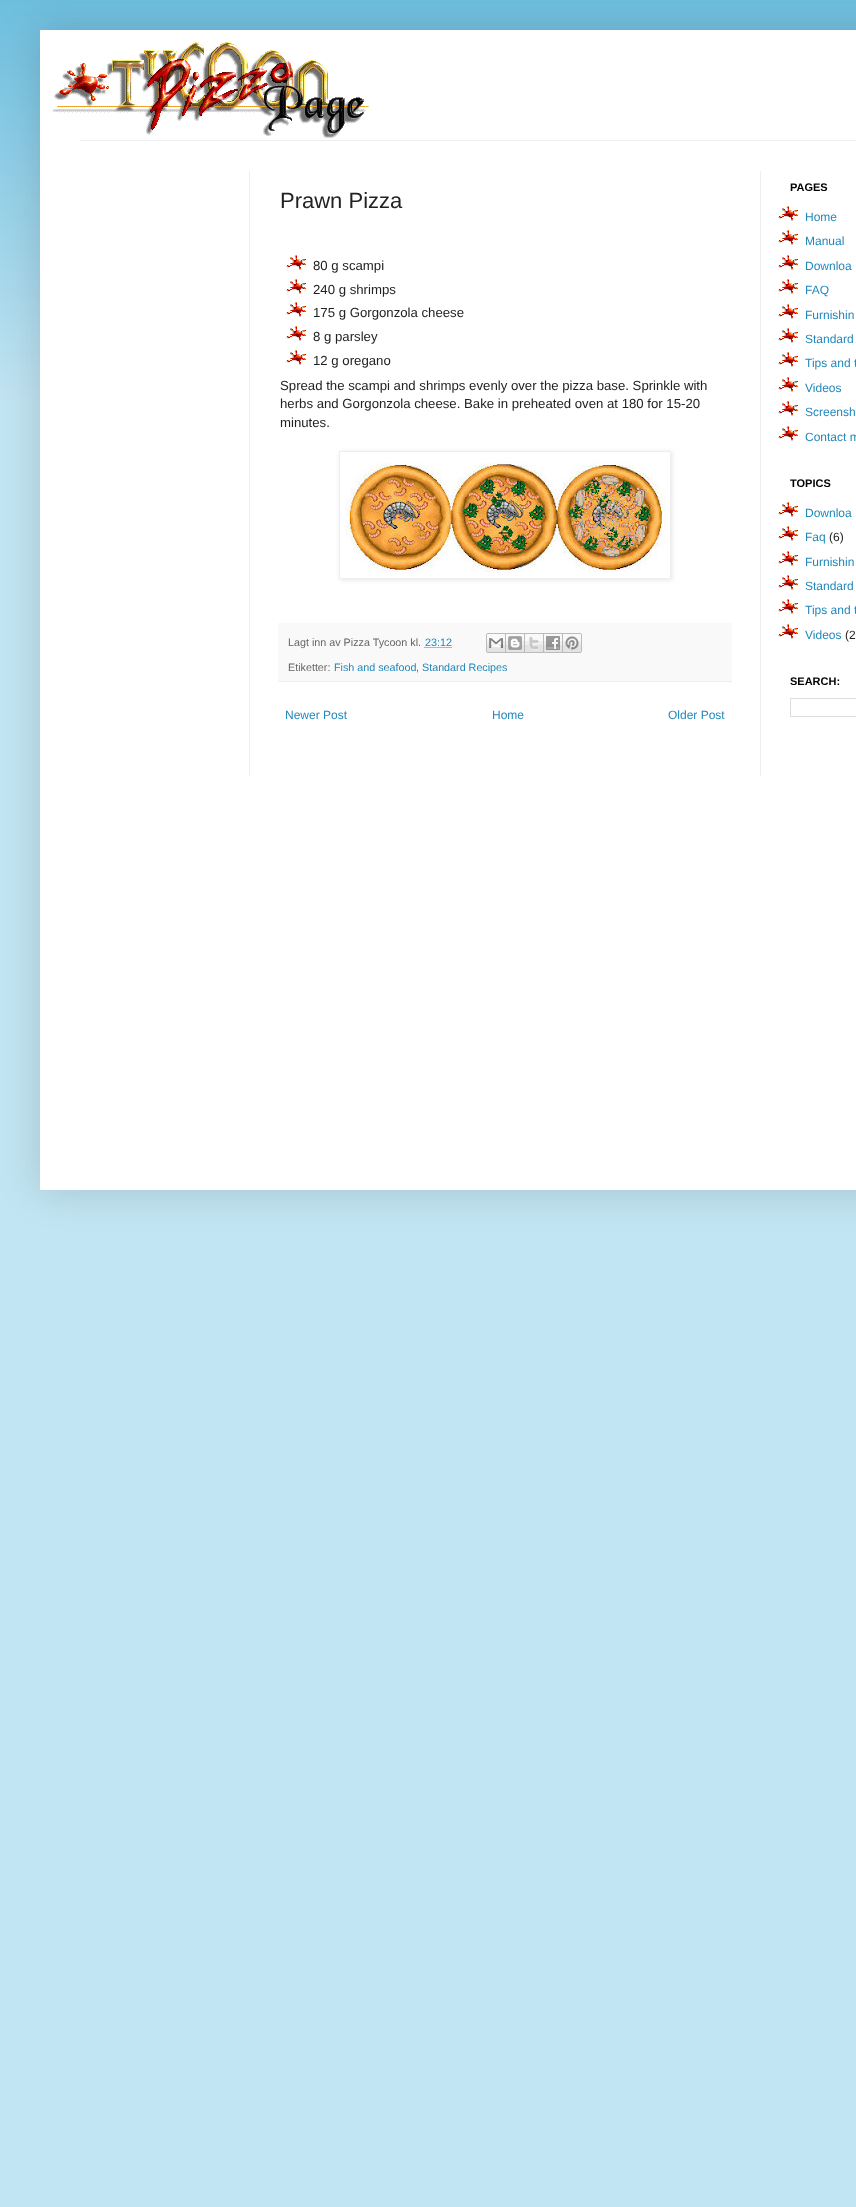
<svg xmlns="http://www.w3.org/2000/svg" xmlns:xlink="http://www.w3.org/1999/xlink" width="856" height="2207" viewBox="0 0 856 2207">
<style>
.cls-1{font:22px Liberation Sans;fill:#222222}
.cls-2{font:13.2px Liberation Sans;fill:#222222}
.cls-3{font:10.75px Liberation Sans;fill:#666666}
.cls-4{font:10.75px Liberation Sans;fill:#2288bb}
.cls-5{font:12px Liberation Sans;fill:#2288bb}
.cls-6{font:bold 11px Liberation Sans;fill:#000000}
.cls-7{font:12px Liberation Sans;fill:#222222}
</style>
<defs>
<clipPath id="clip1"><path d="M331 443H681V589H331ZM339 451H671V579H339Z" clip-rule="evenodd"/></clipPath>
</defs>
<rect width="100%" height="100%" fill="#c1e5f2"/>
<rect fill="#66bbdd" x="0" y="0" width="856" height="400"/>
<image xlink:href="image0.png" x="0" y="0" width="856" height="400"/>
<rect fill="#000000" fill-opacity="0.15" filter="blur(20px)" x="40" y="30" width="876" height="1160"/>
<rect fill="#ffffff" x="40" y="30" width="816" height="1160"/>
<image xlink:href="image1.png" x="52" y="42" width="317" height="96"/>
<rect fill="#eeeeee" x="80" y="140" width="776" height="1"/>
<rect fill="#eeeeee" x="249" y="171" width="1" height="605"/>
<rect fill="#eeeeee" x="760" y="171" width="1" height="605"/>
<image xlink:href="image2.png" x="286" y="255" width="20" height="15"/>
<image xlink:href="image2.png" x="286" y="279" width="20" height="15"/>
<image xlink:href="image2.png" x="286" y="302" width="20" height="15"/>
<image xlink:href="image2.png" x="286" y="326" width="20" height="15"/>
<image xlink:href="image2.png" x="286" y="350" width="20" height="15"/>
<g clip-path="url(#clip1)">
<rect fill="#000000" fill-opacity="0.1" filter="blur(2.5px)" x="340" y="452" width="332" height="128"/>
</g>
<rect fill="none" stroke="#eeeeee" x="339.5" y="451.5" width="331" height="127"/>
<image xlink:href="image3.png" x="345" y="457" width="320" height="116"/>
<rect fill="#f9f9f9" x="278" y="623" width="454" height="58"/>
<rect fill="#eeeeee" x="278" y="681" width="454" height="1"/>
<path fill="none" stroke="#2288bb" stroke-dasharray="1 1" d="M424.5 647.5H451.5"/>
<image xlink:href="image4.png" x="486" y="633" width="20" height="20"/>
<image xlink:href="image5.png" x="506" y="633" width="19" height="20"/>
<image xlink:href="image6.png" x="525" y="633" width="19" height="20"/>
<image xlink:href="image7.png" x="544" y="633" width="19" height="20"/>
<image xlink:href="image8.png" x="563" y="633" width="19" height="20"/>
<image xlink:href="image2.png" x="778" y="206" width="20" height="15"/>
<image xlink:href="image2.png" x="778" y="230" width="20" height="15"/>
<image xlink:href="image2.png" x="778" y="255" width="20" height="15"/>
<image xlink:href="image2.png" x="778" y="279" width="20" height="15"/>
<image xlink:href="image2.png" x="778" y="304" width="20" height="15"/>
<image xlink:href="image2.png" x="778" y="328" width="20" height="15"/>
<image xlink:href="image2.png" x="778" y="352" width="20" height="15"/>
<image xlink:href="image2.png" x="778" y="377" width="20" height="15"/>
<image xlink:href="image2.png" x="778" y="401" width="20" height="15"/>
<image xlink:href="image2.png" x="778" y="426" width="20" height="15"/>
<image xlink:href="image2.png" x="778" y="502" width="20" height="15"/>
<image xlink:href="image2.png" x="778" y="526" width="20" height="15"/>
<image xlink:href="image2.png" x="778" y="551" width="20" height="15"/>
<image xlink:href="image2.png" x="778" y="575" width="20" height="15"/>
<image xlink:href="image2.png" x="778" y="599" width="20" height="15"/>
<image xlink:href="image2.png" x="778" y="624" width="20" height="15"/>
<rect fill="none" stroke="#dddddd" x="790.5" y="698.5" width="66" height="18"/>
<text class="cls-1" x="280" y="208">Prawn Pizza</text>
<text class="cls-2"><tspan x="313" y="270">80 g scampi</tspan><tspan x="313" y="294">240 g shrimps</tspan><tspan x="313" y="317">175 g Gorgonzola cheese</tspan><tspan x="313" y="341">8 g parsley</tspan><tspan x="313" y="365">12 g oregano</tspan></text>
<text class="cls-2"><tspan x="280" y="390">Spread the scampi and shrimps evenly over the pizza base. Sprinkle with</tspan><tspan x="280" y="408">herbs and Gorgonzola cheese. Bake in preheated oven at 180 for 15-20</tspan><tspan x="280" y="427">minutes.</tspan></text>
<text class="cls-3" x="288" y="646">Lagt inn av Pizza Tycoon kl.</text>
<text class="cls-4" x="425" y="646">23:12</text>
<text class="cls-3" x="288" y="671">Etiketter:</text>
<text class="cls-4" x="334" y="671">Fish and seafood</text>
<text class="cls-3" x="416" y="671">,</text>
<text class="cls-4" x="422" y="671">Standard Recipes</text>
<text class="cls-5" x="285" y="719">Newer Post</text>
<text class="cls-5" x="492" y="719">Home</text>
<text class="cls-5" x="668" y="719">Older Post</text>
<text class="cls-6" x="790" y="191">PAGES</text>
<text class="cls-5" x="805" y="221">Home</text>
<text class="cls-5" x="805" y="245">Manual</text>
<text class="cls-5" x="805" y="270">Downloa</text>
<text class="cls-5" x="805" y="294">FAQ</text>
<text class="cls-5" x="805" y="319">Furnishin</text>
<text class="cls-5" x="805" y="343">Standard</text>
<text class="cls-5" x="805" y="367">Tips and t</text>
<text class="cls-5" x="805" y="392">Videos</text>
<text class="cls-5" x="805" y="416">Screensh</text>
<text class="cls-5" x="805" y="441">Contact m</text>
<text class="cls-6" x="790" y="487">TOPICS</text>
<text class="cls-5" x="805" y="517">Downloa</text>
<text class="cls-5" x="805" y="541">Faq</text>
<text class="cls-7" x="829" y="541">(6)</text>
<text class="cls-5" x="805" y="566">Furnishin</text>
<text class="cls-5" x="805" y="590">Standard</text>
<text class="cls-5" x="805" y="614">Tips and t</text>
<text class="cls-5" x="805" y="639">Videos</text>
<text class="cls-7" x="845" y="639">(2</text>
<text class="cls-6" x="790" y="685">SEARCH:</text>
</svg>
